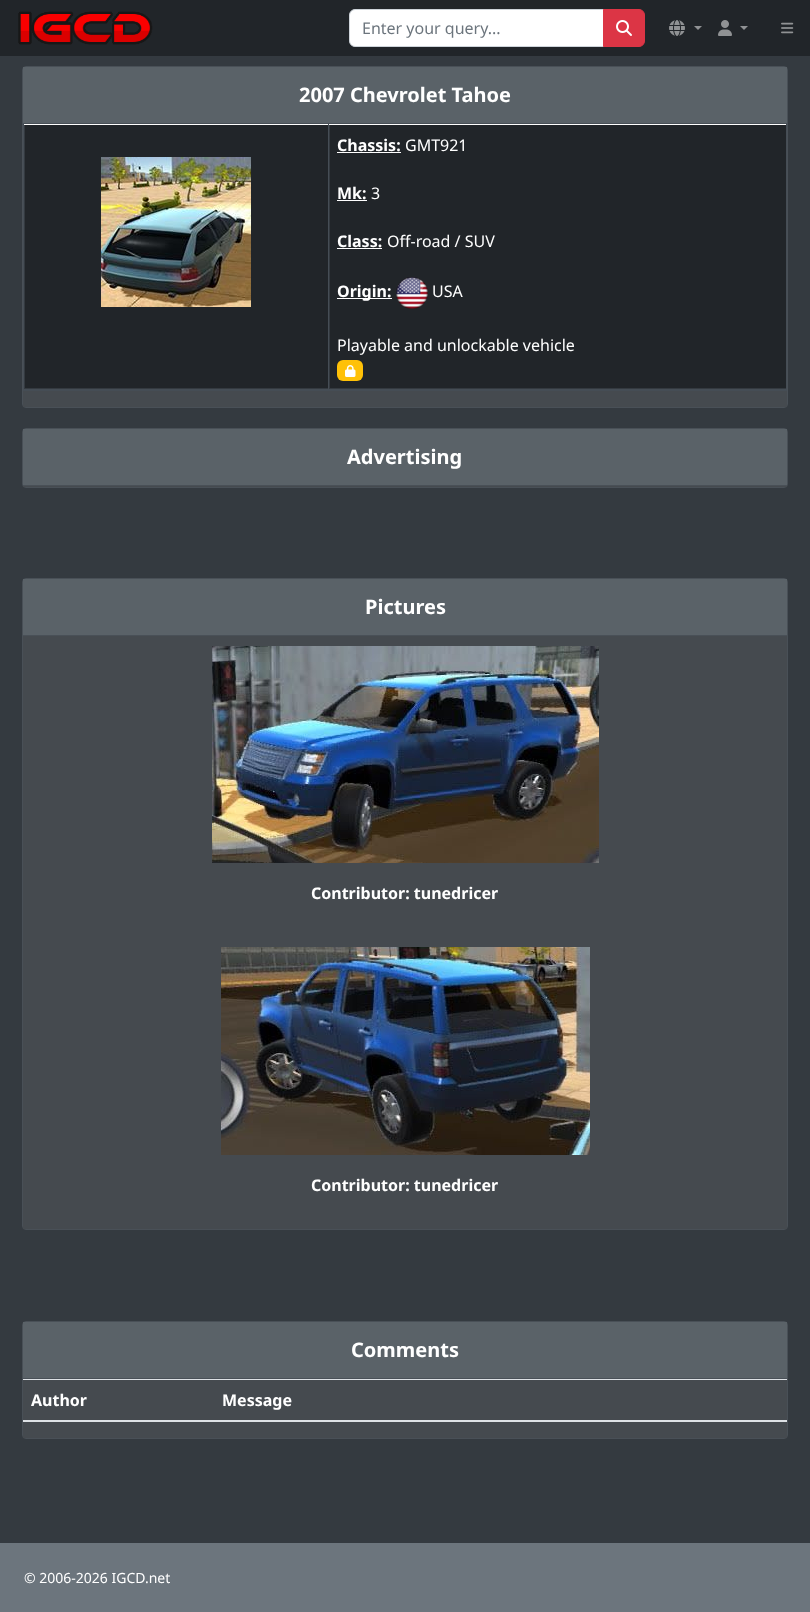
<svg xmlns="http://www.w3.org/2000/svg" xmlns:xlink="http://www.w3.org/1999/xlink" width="810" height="1612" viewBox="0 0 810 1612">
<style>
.cls-1{font:16px Noto Sans;fill:#6c757d}
.cls-2{font:bold 20px Noto Sans;fill:#ffffff}
.cls-3{font:bold 16px Noto Sans;fill:#ffffff}
.cls-4{font:16px Noto Sans;fill:#ffffff}
.cls-5{font:14px Noto Sans;fill:#ffffff}
</style>
<rect width="100%" height="100%" fill="#343a40"/>
<rect fill="#212529" x="0" y="0" width="810" height="56"/>
<image xlink:href="image0.png" x="18" y="11" width="135" height="34"/>
<path fill="#ffffff" stroke="#ced4da" d="M355 9.5H603.5V46.5H355C352 46.5 349.5 44 349.5 41V15C349.5 12 352 9.5 355 9.5Z"/>
<path fill="#dc3545" stroke="#dc3545" d="M603.5 9.5H639C642 9.5 644.5 12 644.5 15V41C644.5 44 642 46.5 639 46.5H603.5Z"/>
<image xlink:href="image1.png" x="616" y="20" width="16" height="16"/>
<image xlink:href="image2.png" x="669" y="20" width="16" height="16"/>
<path fill="#909294" d="M694 26H702L698 30Z"/>
<image xlink:href="image3.png" x="718" y="20" width="14" height="16"/>
<path fill="#909294" d="M740 26H748L744 30Z"/>
<image xlink:href="image4.png" x="781" y="22" width="13" height="12"/>
<rect fill="none" stroke="#495057" x="22.5" y="66.5" width="765" height="341" rx="3.5"/>
<rect fill="#5a6268" x="23" y="67" width="764" height="56"/>
<rect fill="#495057" x="23" y="123" width="764" height="1"/>
<rect fill="#454a4f" x="23" y="391" width="764" height="16"/>
<rect fill="#ffffff" x="23" y="124" width="764" height="1"/>
<rect fill="#212529" x="25" y="125" width="303" height="263"/>
<rect fill="#454d55" x="23" y="124" width="1" height="267"/>
<image xlink:href="image5.png" x="101" y="157" width="150" height="150"/>
<rect fill="#212529" x="330" y="125" width="456" height="263"/>
<rect fill="#454d55" x="786" y="124" width="1" height="267"/>
<rect fill="#454d55" x="328" y="124" width="1" height="267"/>
<rect fill="#454d55" x="23" y="389" width="764" height="2"/>
<rect fill="#ffffff" x="337" y="152" width="64" height="1"/>
<rect fill="#ffffff" x="337" y="200" width="30" height="1"/>
<rect fill="#ffffff" x="337" y="248" width="45" height="1"/>
<rect fill="#ffffff" x="337" y="298" width="55" height="1"/>
<image xlink:href="image6.png" x="396" y="277" width="32" height="32"/>
<rect fill="#ffc107" x="337" y="360" width="26" height="21" rx="6"/>
<image xlink:href="image7.png" x="345" y="365" width="11" height="12"/>
<rect fill="none" stroke="#495057" x="22.5" y="428.5" width="765" height="59" rx="3.5"/>
<rect fill="#5a6268" x="23" y="429" width="764" height="56"/>
<rect fill="#495057" x="23" y="485" width="764" height="1"/>
<rect fill="#454a4f" x="23" y="486" width="764" height="1"/>
<rect fill="none" stroke="#495057" x="22.5" y="578.5" width="765" height="651" rx="3.5"/>
<rect fill="#5a6268" x="23" y="579" width="764" height="56"/>
<rect fill="#495057" x="23" y="635" width="764" height="1"/>
<rect fill="#454a4f" x="23" y="636" width="764" height="593"/>
<image xlink:href="image8.png" x="212" y="646" width="387" height="217"/>
<image xlink:href="image9.png" x="221" y="947" width="369" height="208"/>
<rect fill="none" stroke="#495057" x="22.5" y="1321.5" width="765" height="117" rx="3.5"/>
<rect fill="#5a6268" x="23" y="1322" width="764" height="56"/>
<rect fill="#495057" x="23" y="1378" width="764" height="1"/>
<rect fill="#454a4f" x="23" y="1380" width="764" height="58"/>
<rect fill="#dee2e6" x="23" y="1379" width="764" height="1"/>
<rect fill="#dee2e6" x="23" y="1420" width="764" height="2"/>
<rect fill="#6c757d" x="0" y="1543" width="810" height="69"/>
<text class="cls-1" x="362" y="34">Enter your query...</text>
<text class="cls-2" x="299" y="102">2007 Chevrolet Tahoe</text>
<text class="cls-3" x="337" y="151">Chassis:</text>
<text class="cls-4" x="405" y="151">GMT921</text>
<text class="cls-3" x="337" y="199">Mk:</text>
<text class="cls-4" x="371" y="199">3</text>
<text class="cls-3" x="337" y="247">Class:</text>
<text class="cls-4" x="387" y="247">Off-road / SUV</text>
<text class="cls-3" x="337" y="297">Origin:</text>
<text class="cls-4" x="432" y="297">USA</text>
<text class="cls-4" x="337" y="351">Playable and unlockable vehicle</text>
<text class="cls-2" x="347" y="464">Advertising</text>
<text class="cls-2" x="365" y="614">Pictures</text>
<text class="cls-3" x="311" y="899">Contributor: tunedricer</text>
<text class="cls-3" x="311" y="1191">Contributor: tunedricer</text>
<text class="cls-2" x="351" y="1357">Comments</text>
<text class="cls-3" x="31" y="1406">Author</text>
<text class="cls-3" x="222" y="1406">Message</text>
<text class="cls-5" x="24" y="1583">© 2006-2026 IGCD.net</text>
</svg>
